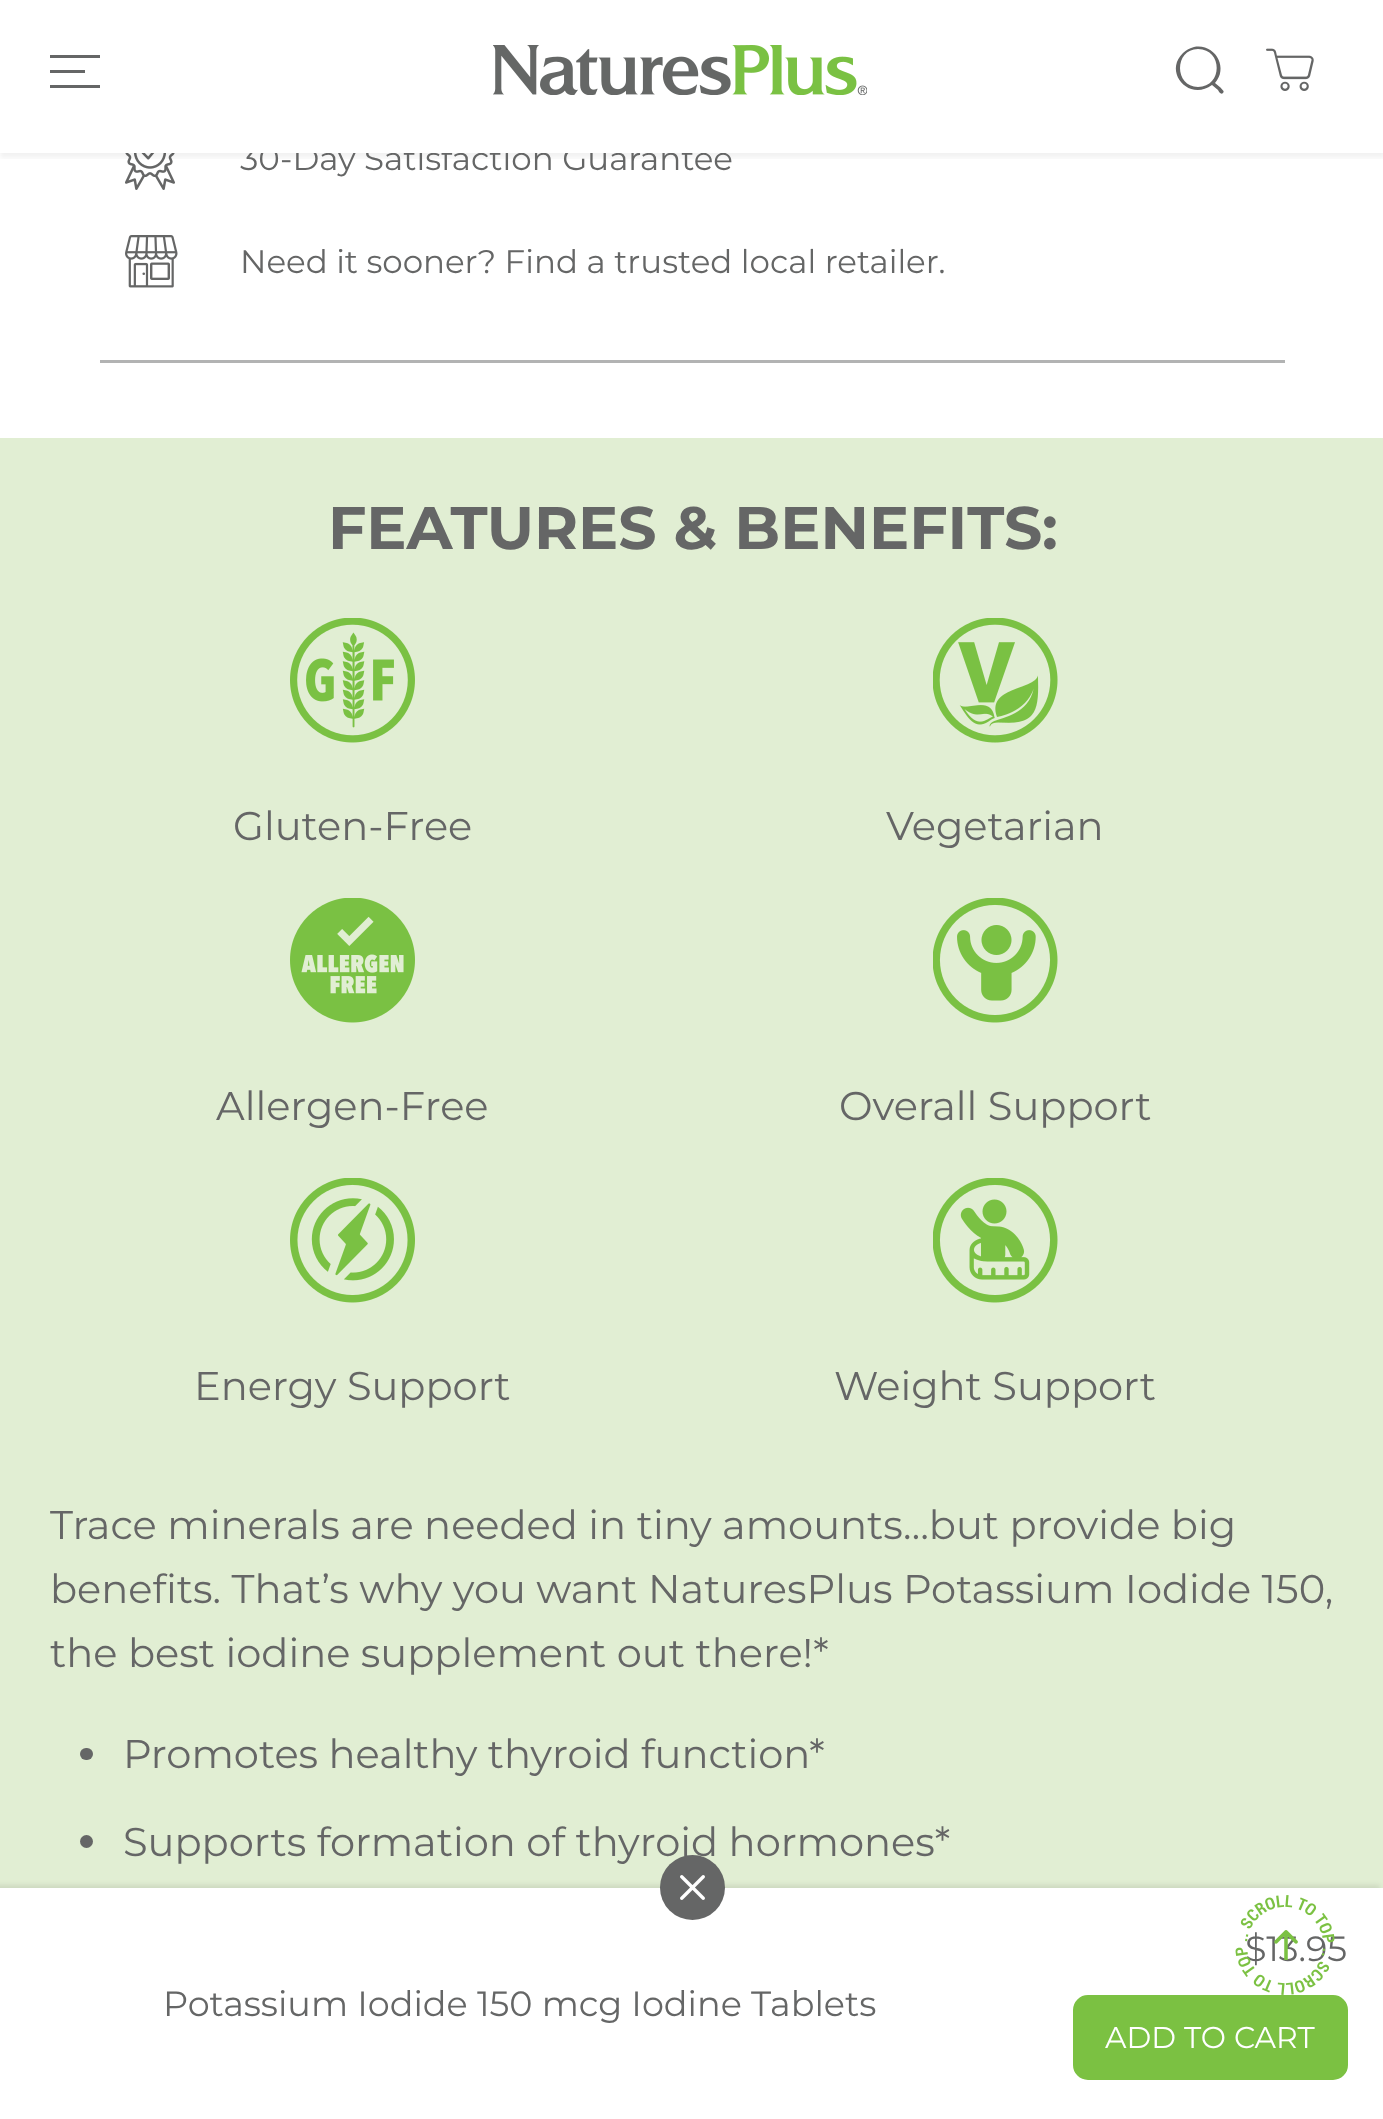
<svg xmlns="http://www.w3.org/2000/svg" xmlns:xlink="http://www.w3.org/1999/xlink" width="1383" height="2119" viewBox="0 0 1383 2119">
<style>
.cls-1{font:32.5px Montserrat;fill:#656666}
.cls-2{font:35px Montserrat;fill:#656666}
.cls-3{font:30px Montserrat;fill:#ffffff}
.cls-4{font:bold 60px Montserrat;fill:#656666}
.cls-5{font:40px Montserrat;fill:#656666}
</style>
<defs>
<clipPath id="clip1"><rect x="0" y="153" width="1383" height="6"/></clipPath>
</defs>
<rect width="100%" height="100%" fill="#ffffff"/>
<image xlink:href="image2.png" x="125" y="153" width="50" height="37"/>
<g clip-path="url(#clip1)">
<rect fill="#000000" fill-opacity="0.05" filter="blur(2.5px)" x="0" y="5" width="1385" height="153"/>
</g>
<rect fill="#656666" x="50" y="70" width="35" height="3"/>
<rect fill="#656666" x="50" y="55" width="50" height="3"/>
<rect fill="#656666" x="50" y="85" width="50" height="3"/>
<image xlink:href="image0.png" x="493" y="45" width="374" height="50"/>
<path fill="#656666" d="M1215 83C1229 68 1215 43 1194 47C1190 48 1186 50 1183 53C1163 72 1189 102 1212 85L1218 90C1219 92 1221 95 1223 93C1225 91 1222 90 1221 88ZM1198 87C1174 87 1174 49 1198 49C1223 49 1223 87 1198 87Z"/>
<image xlink:href="image1.png" x="1266" y="48" width="48" height="43"/>
<image xlink:href="image3.png" x="125" y="235" width="53" height="53"/>
<rect fill="#b2b3b3" x="100" y="360" width="1185" height="3"/>
<rect fill="#e1eed3" x="0" y="438" width="1383" height="1450"/>
<rect fill="#000000" fill-opacity="0.09" filter="blur(2.5px)" x="-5" y="1885" width="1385" height="233"/>
<rect fill="#ffffff" x="0" y="1888" width="1383" height="231"/>
<circle fill="#656666" cx="692.5" cy="1887.5" r="32.5"/>
<image xlink:href="image4.png" x="680" y="1875" width="25" height="25"/>
<rect fill="#7bc142" stroke="#7bc142" stroke-width="3" x="1074.5" y="1996.5" width="272" height="82" rx="13.5"/>
<image xlink:href="image5.png" x="290" y="618" width="125" height="125"/>
<image xlink:href="image6.png" x="933" y="618" width="125" height="125"/>
<image xlink:href="image7.png" x="290" y="898" width="125" height="125"/>
<image xlink:href="image8.png" x="933" y="898" width="125" height="125"/>
<image xlink:href="image9.png" x="290" y="1178" width="125" height="125"/>
<image xlink:href="image10.png" x="933" y="1178" width="125" height="125"/>
<rect fill="#656666" x="80" y="1748" width="13" height="12" rx="6"/>
<circle fill="#656666" cx="86.5" cy="1841.5" r="6.5"/>
<text class="cls-1" x="240" y="170">30-Day Satisfaction Guarantee</text>
<rect fill="#ffffff" x="0" y="145" width="1383" height="8"/>
<text class="cls-1" x="240" y="273">Need it sooner? Find a trusted local retailer.</text>
<text class="cls-2" x="163" y="2016">Potassium Iodide 150 mcg Iodine Tablets</text>
<text class="cls-2" x="1245" y="1961">$13.95</text>
<text class="cls-3" x="1105" y="2048">ADD TO CART</text>
<text class="cls-4" x="328" y="549">FEATURES &amp; BENEFITS:</text>
<text class="cls-5" x="233" y="840">Gluten-Free</text>
<text class="cls-5" x="886" y="840">Vegetarian</text>
<text class="cls-5" x="216" y="1120">Allergen-Free</text>
<text class="cls-5" x="839" y="1120">Overall Support</text>
<text class="cls-5" x="194" y="1400">Energy Support</text>
<text class="cls-5" x="834" y="1400">Weight Support</text>
<text class="cls-5"><tspan x="50" y="1539">Trace minerals are needed in tiny amounts…but provide big</tspan><tspan x="50" y="1603">benefits. That’s why you want NaturesPlus Potassium Iodide 150,</tspan><tspan x="50" y="1667">the best iodine supplement out there!*</tspan></text>
<text class="cls-5" x="123" y="1768">Promotes healthy thyroid function*</text>
<text class="cls-5" x="123" y="1856">Supports formation of thyroid hormones*</text>
<image xlink:href="image12.png" x="1274" y="1930" width="24" height="30"/>
<image xlink:href="image11.png" x="1235" y="1895" width="100" height="100"/>
</svg>
